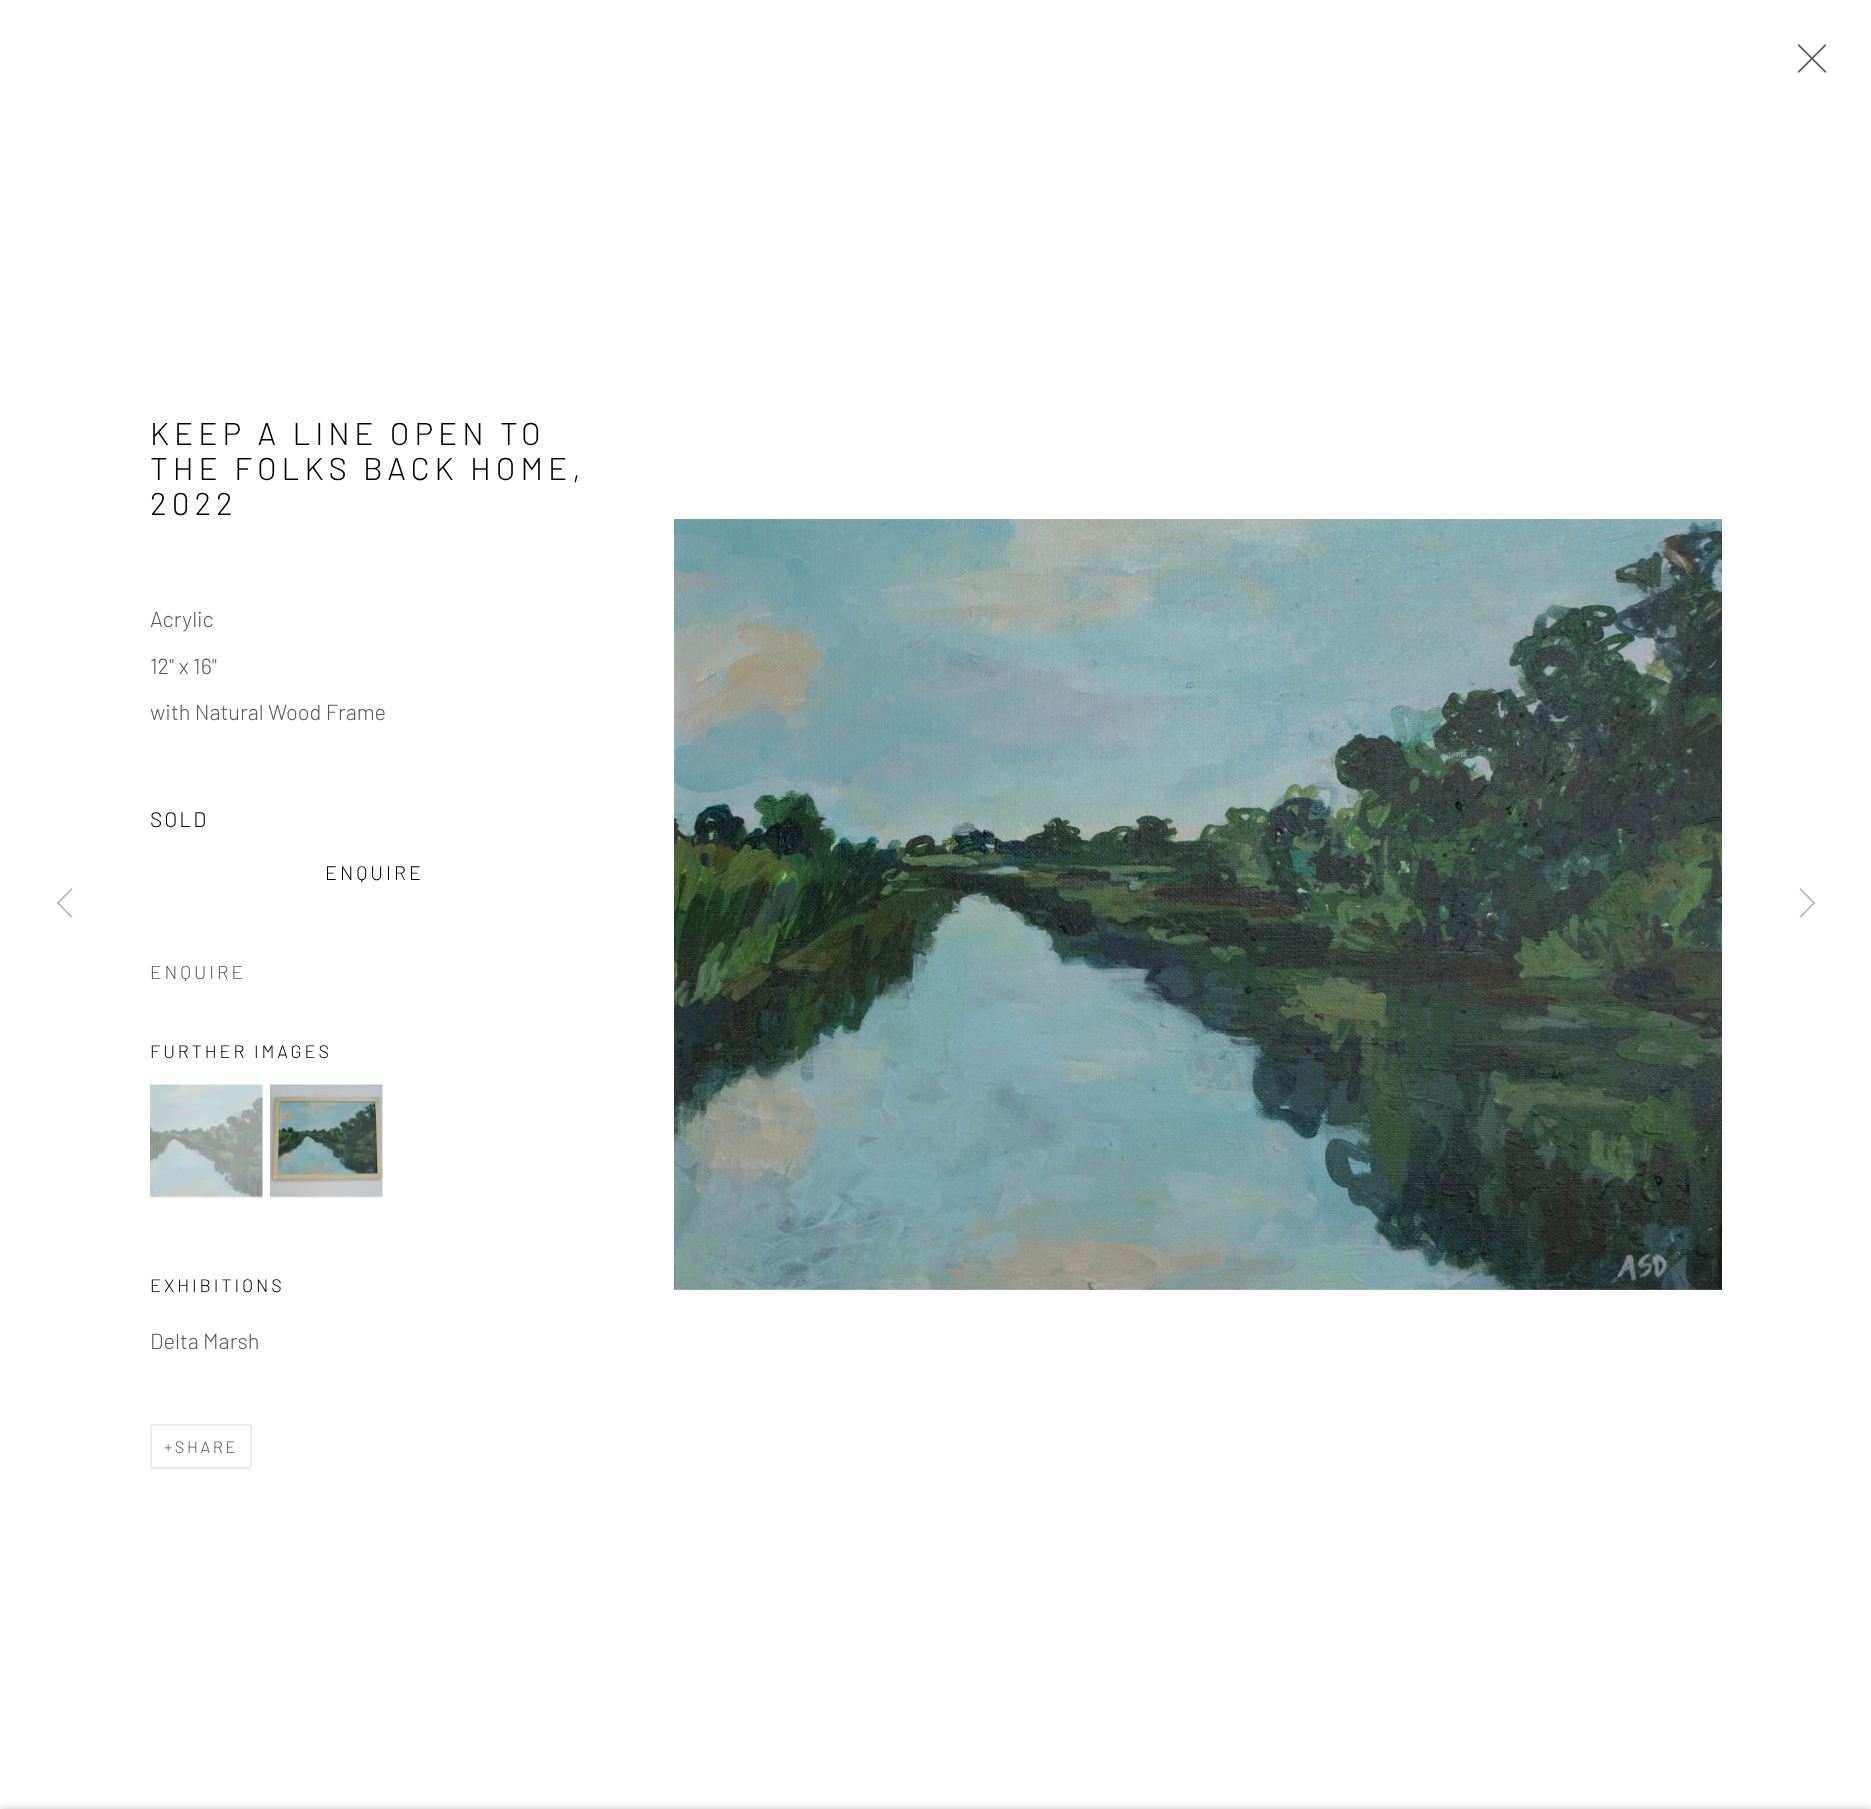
<svg xmlns="http://www.w3.org/2000/svg" xmlns:xlink="http://www.w3.org/1999/xlink" width="1871" height="1809" viewBox="0 0 1871 1809">
<style>
.cls-1{font:300 31.5px Barlow;letter-spacing:5px;fill:#010101}
.cls-2{font:300 21.75px Barlow;fill:#585858}
.cls-3{font:300 21px Barlow;letter-spacing:2px;fill:#010101}
.cls-4{font:300 19.5px Barlow;letter-spacing:3px;fill:#010101}
.cls-5{font:300 18.75px Barlow;letter-spacing:3px;fill:#585858}
.cls-6{font:300 18px Barlow;letter-spacing:2.9px;fill:#010101}
.cls-7{font:300 16.5px Barlow;letter-spacing:2.5px;fill:#585858}
</style>
<rect width="100%" height="100%" fill="#ffffff"/>
<image xlink:href="image0.png" x="1797" y="44" width="30" height="29"/>
<image xlink:href="image1.png" x="150" y="1084" width="113" height="114"/>
<image xlink:href="image2.png" x="270" y="1084" width="113" height="114"/>
<rect fill="none" stroke="#ebebeb" stroke-width="2" x="151" y="1425" width="100" height="43" rx="2"/>
<image xlink:href="image3.png" x="674" y="519" width="1048" height="771"/>
<path fill="#b9b9b9" d="M57.5 904L71.5 918L72.5 916.5L59 903L72.5 889.5L71.5 888L56.5 903Z"/>
<path fill="#b9b9b9" d="M1815.5 903L1800.5 888L1799.5 889.5L1813 903L1799.5 916.5L1800.5 918Z"/>
<rect fill="#000000" fill-opacity="0.23" filter="blur(4px)" x="0" y="1809" width="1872" height="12"/>
<text class="cls-1"><tspan x="150" y="445">KEEP A LINE OPEN TO</tspan><tspan x="150" y="480">THE FOLKS BACK HOME,</tspan><tspan x="150" y="515">2022</tspan></text>
<text class="cls-2" x="150" y="627">Acrylic</text>
<text class="cls-2" x="150" y="674">12" x 16"</text>
<text class="cls-2" x="150" y="720">with Natural Wood Frame</text>
<text class="cls-3" x="150" y="827">SOLD</text>
<text class="cls-4" x="325" y="880">ENQUIRE</text>
<text class="cls-5" x="150" y="979">ENQUIRE</text>
<text class="cls-6" x="150" y="1058">FURTHER IMAGES</text>
<text class="cls-6" x="150" y="1292">EXHIBITIONS</text>
<text class="cls-2" x="150" y="1349">Delta Marsh</text>
<text class="cls-7" x="164" y="1453">+SHARE</text>
</svg>
